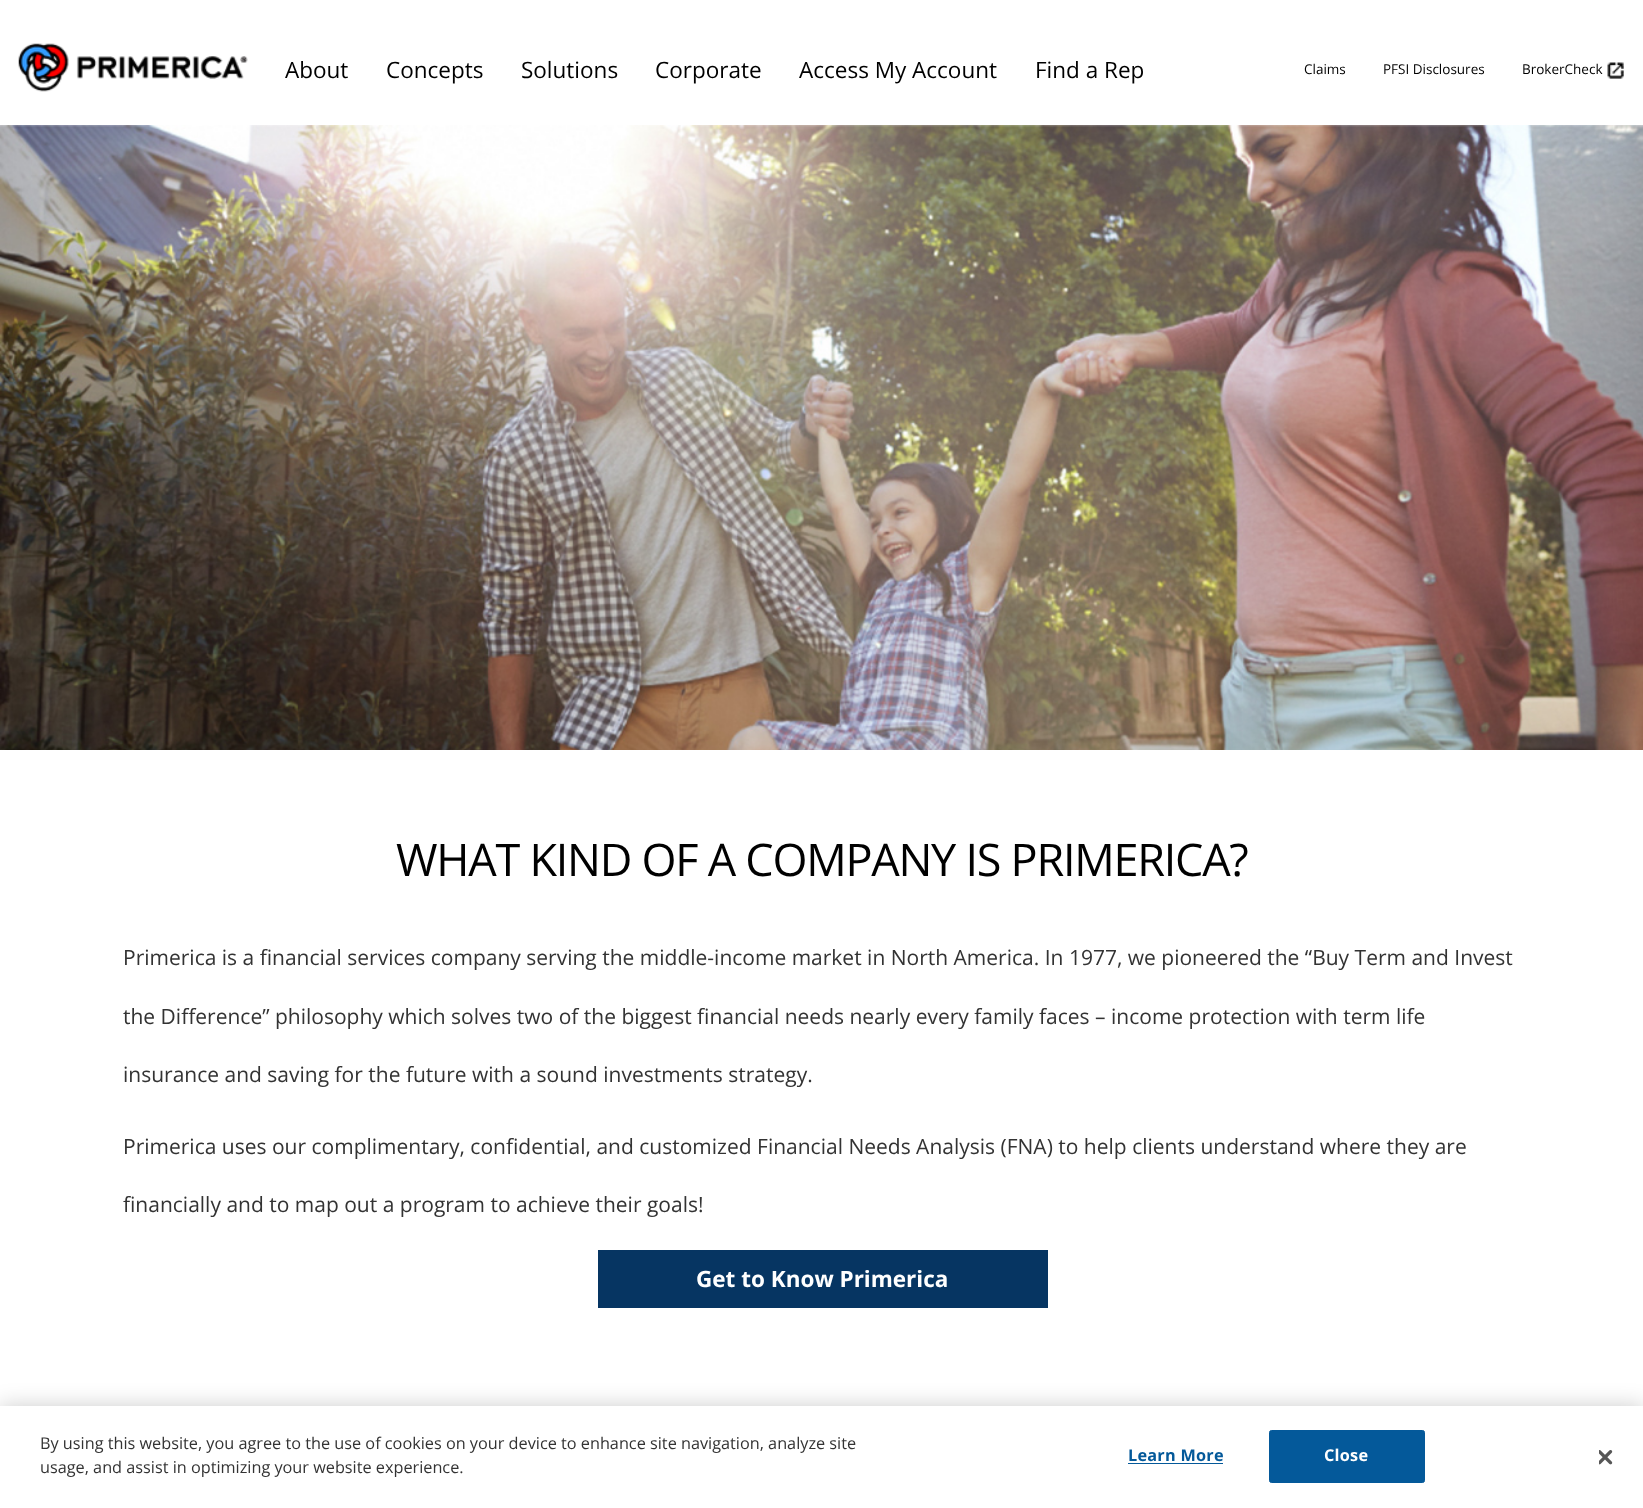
<svg xmlns="http://www.w3.org/2000/svg" xmlns:xlink="http://www.w3.org/1999/xlink" width="1643" height="1508" viewBox="0 0 1643 1508">
<style>
.cls-1{font:22.5px Open Sans;fill:#000000}
.cls-2{font:13.5px Open Sans;fill:#000000}
.cls-3{font:45px Open Sans;letter-spacing:-1.25px;fill:#000000}
.cls-4{font:21px Open Sans;fill:#333333}
.cls-5{font:bold 22.5px Open Sans;fill:#ffffff}
.cls-6{font:16.25px Open Sans;fill:#333333}
.cls-7{font:bold 16.25px Open Sans;letter-spacing:0.25px;fill:#04599a}
.cls-8{font:bold 16.25px Open Sans;letter-spacing:0.25px;fill:#ffffff}
</style>
<rect width="100%" height="100%" fill="#ffffff"/>
<image xlink:href="image0.png" x="18" y="43" width="230" height="49"/>
<image xlink:href="image1.png" x="1607" y="62" width="17" height="17"/>
<image xlink:href="image2.png" x="0" y="125" width="1643" height="625"/>
<rect fill="#063562" x="598" y="1250" width="450" height="58"/>
<rect fill="#000000" fill-opacity="0.2" filter="blur(11px)" x="0" y="1406" width="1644" height="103"/>
<rect fill="#ffffff" x="0" y="1406" width="1643" height="102"/>
<rect fill="#04599a" x="1128" y="1463" width="95" height="1"/>
<rect fill="#04599a" stroke="#04599a" x="1269.5" y="1430.5" width="155" height="52" rx="2"/>
<image xlink:href="image3.png" x="1599" y="1450" width="14" height="15"/>
<text class="cls-1" x="285" y="78">About</text>
<text class="cls-1" x="386" y="78">Concepts</text>
<text class="cls-1" x="521" y="78">Solutions</text>
<text class="cls-1" x="655" y="78">Corporate</text>
<text class="cls-1" x="799" y="78">Access My Account</text>
<text class="cls-1" x="1035" y="78">Find a Rep</text>
<text class="cls-2" x="1304" y="74">Claims</text>
<text class="cls-2" x="1383" y="74">PFSI Disclosures</text>
<text class="cls-2" x="1522" y="74">BrokerCheck</text>
<text class="cls-3" x="396" y="876">WHAT KIND OF A COMPANY IS PRIMERICA?</text>
<text class="cls-4" x="123" y="965">Primerica is a financial services company serving the middle-income market in North America. In 1977, we pioneered the “Buy Term and Invest</text>
<text class="cls-4" x="123" y="1024">the Difference” philosophy which solves two of the biggest financial needs nearly every family faces – income protection with term life</text>
<text class="cls-4" x="123" y="1082">insurance and saving for the future with a sound investments strategy.</text>
<text class="cls-4" x="123" y="1154">Primerica uses our complimentary, confidential, and customized Financial Needs Analysis (FNA) to help clients understand where they are</text>
<text class="cls-4" x="123" y="1212">financially and to map out a program to achieve their goals!</text>
<text class="cls-5" x="696" y="1287">Get to Know Primerica</text>
<text class="cls-6"><tspan x="40" y="1449">By using this website, you agree to the use of cookies on your device to enhance site navigation, analyze site</tspan><tspan x="40" y="1473">usage, and assist in optimizing your website experience.</tspan></text>
<text class="cls-7" x="1128" y="1461">Learn More</text>
<text class="cls-8" x="1324" y="1461">Close</text>
</svg>
